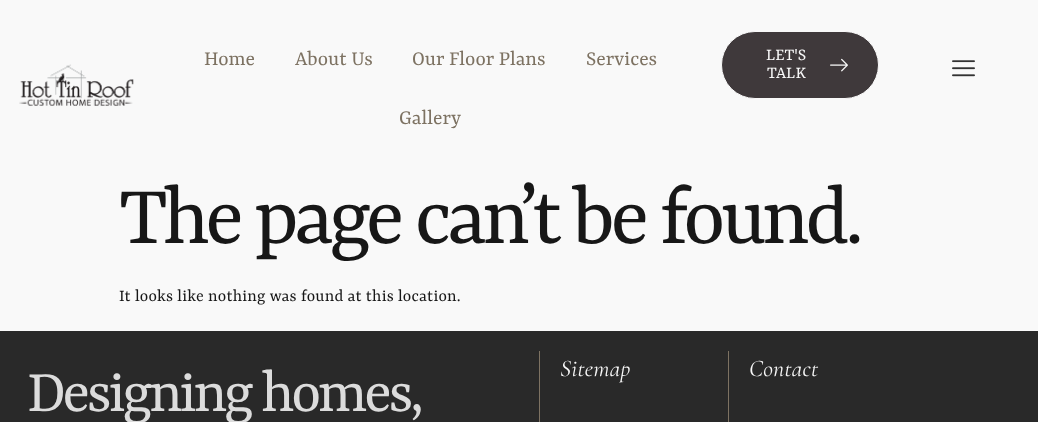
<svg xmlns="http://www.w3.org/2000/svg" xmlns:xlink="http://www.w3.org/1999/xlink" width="1038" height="422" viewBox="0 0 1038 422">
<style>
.cls-1{font:22px Yrsa;fill:#7d7262}
.cls-2{font:18px Yrsa;fill:#f9f9f9}
.cls-3{font:90px Yrsa;letter-spacing:-4.5px;fill:#171717}
.cls-4{font:18px Yrsa;letter-spacing:0.2px;fill:#171717}
.cls-5{font:64px Yrsa;letter-spacing:-3.25px;fill:#dcdcdc}
.cls-6{font:italic 24px Cormorant Garamond;letter-spacing:0.25px;fill:#f9f9f9}
</style>
<rect width="100%" height="100%" fill="#f9f9f9"/>
<image xlink:href="image0.png" x="19" y="64" width="115" height="42"/>
<rect fill="#3f393b" stroke="#f9f9f9" x="721.5" y="31.5" width="157" height="67" rx="33.5"/>
<image xlink:href="image1.png" x="830" y="58" width="18" height="14"/>
<image xlink:href="image2.png" x="952" y="60" width="23" height="17"/>
<rect fill="#292929" x="0" y="331" width="1038" height="91"/>
<rect fill="#7d7262" x="539" y="351" width="1" height="71"/>
<rect fill="#7d7262" x="728" y="351" width="1" height="71"/>
<text class="cls-1" x="204" y="65">Home</text>
<text class="cls-1" x="295" y="65">About Us</text>
<text class="cls-1" x="412" y="65">Our Floor Plans</text>
<text class="cls-1" x="586" y="65">Services</text>
<text class="cls-1" x="399" y="124">Gallery</text>
<text class="cls-2" x="766" y="60">LET'S</text>
<text class="cls-2" x="767" y="78">TALK</text>
<text class="cls-3" x="119" y="243">The page can’t be found.</text>
<text class="cls-4" x="119" y="301">It looks like nothing was found at this location.</text>
<text class="cls-5" x="27" y="411">Designing homes,</text>
<text class="cls-6" x="560" y="376">Sitemap</text>
<text class="cls-6" x="749" y="376">Contact</text>
</svg>
